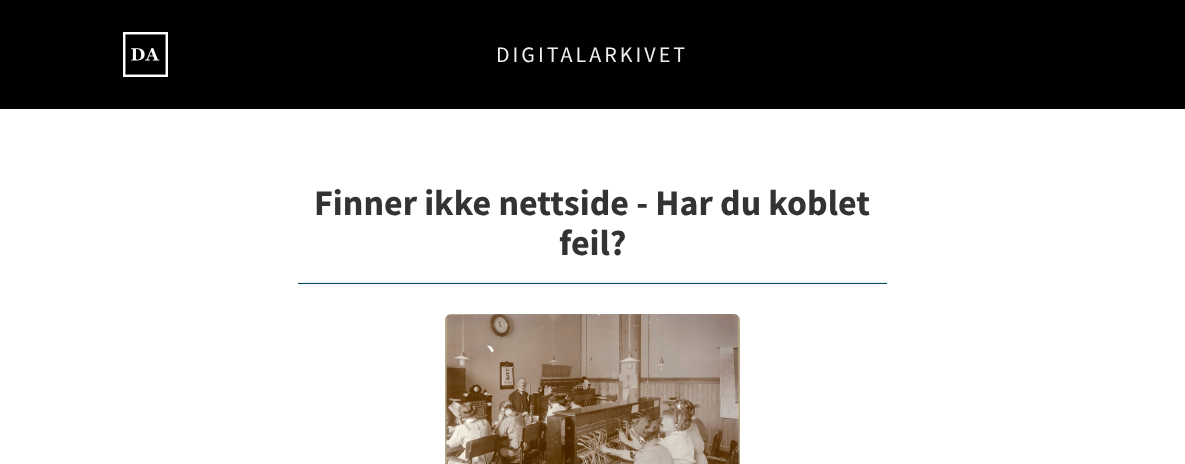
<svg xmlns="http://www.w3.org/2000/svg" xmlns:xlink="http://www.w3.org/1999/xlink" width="1185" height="464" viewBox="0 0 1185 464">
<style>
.cls-1{font:22px Source Sans Pro;letter-spacing:3px;fill:#efefef}
.cls-2{font:bold 36px Source Sans Pro;fill:#333333}
</style>
<rect width="100%" height="100%" fill="#ffffff"/>
<rect fill="#000000" x="0" y="0" width="1185" height="109"/>
<image xlink:href="image0.png" x="123" y="32" width="45" height="45"/>
<rect fill="#eeeeee" x="298" y="282" width="589" height="1"/>
<rect fill="#034c6b" x="298" y="283" width="589" height="1"/>
<image xlink:href="image1.png" x="445" y="314" width="295" height="150"/>
<text class="cls-1" x="496" y="62">DIGITALARKIVET</text>
<text class="cls-2" x="314" y="215">Finner ikke nettside - Har du koblet</text>
<text class="cls-2" x="559" y="255">feil?</text>
</svg>
